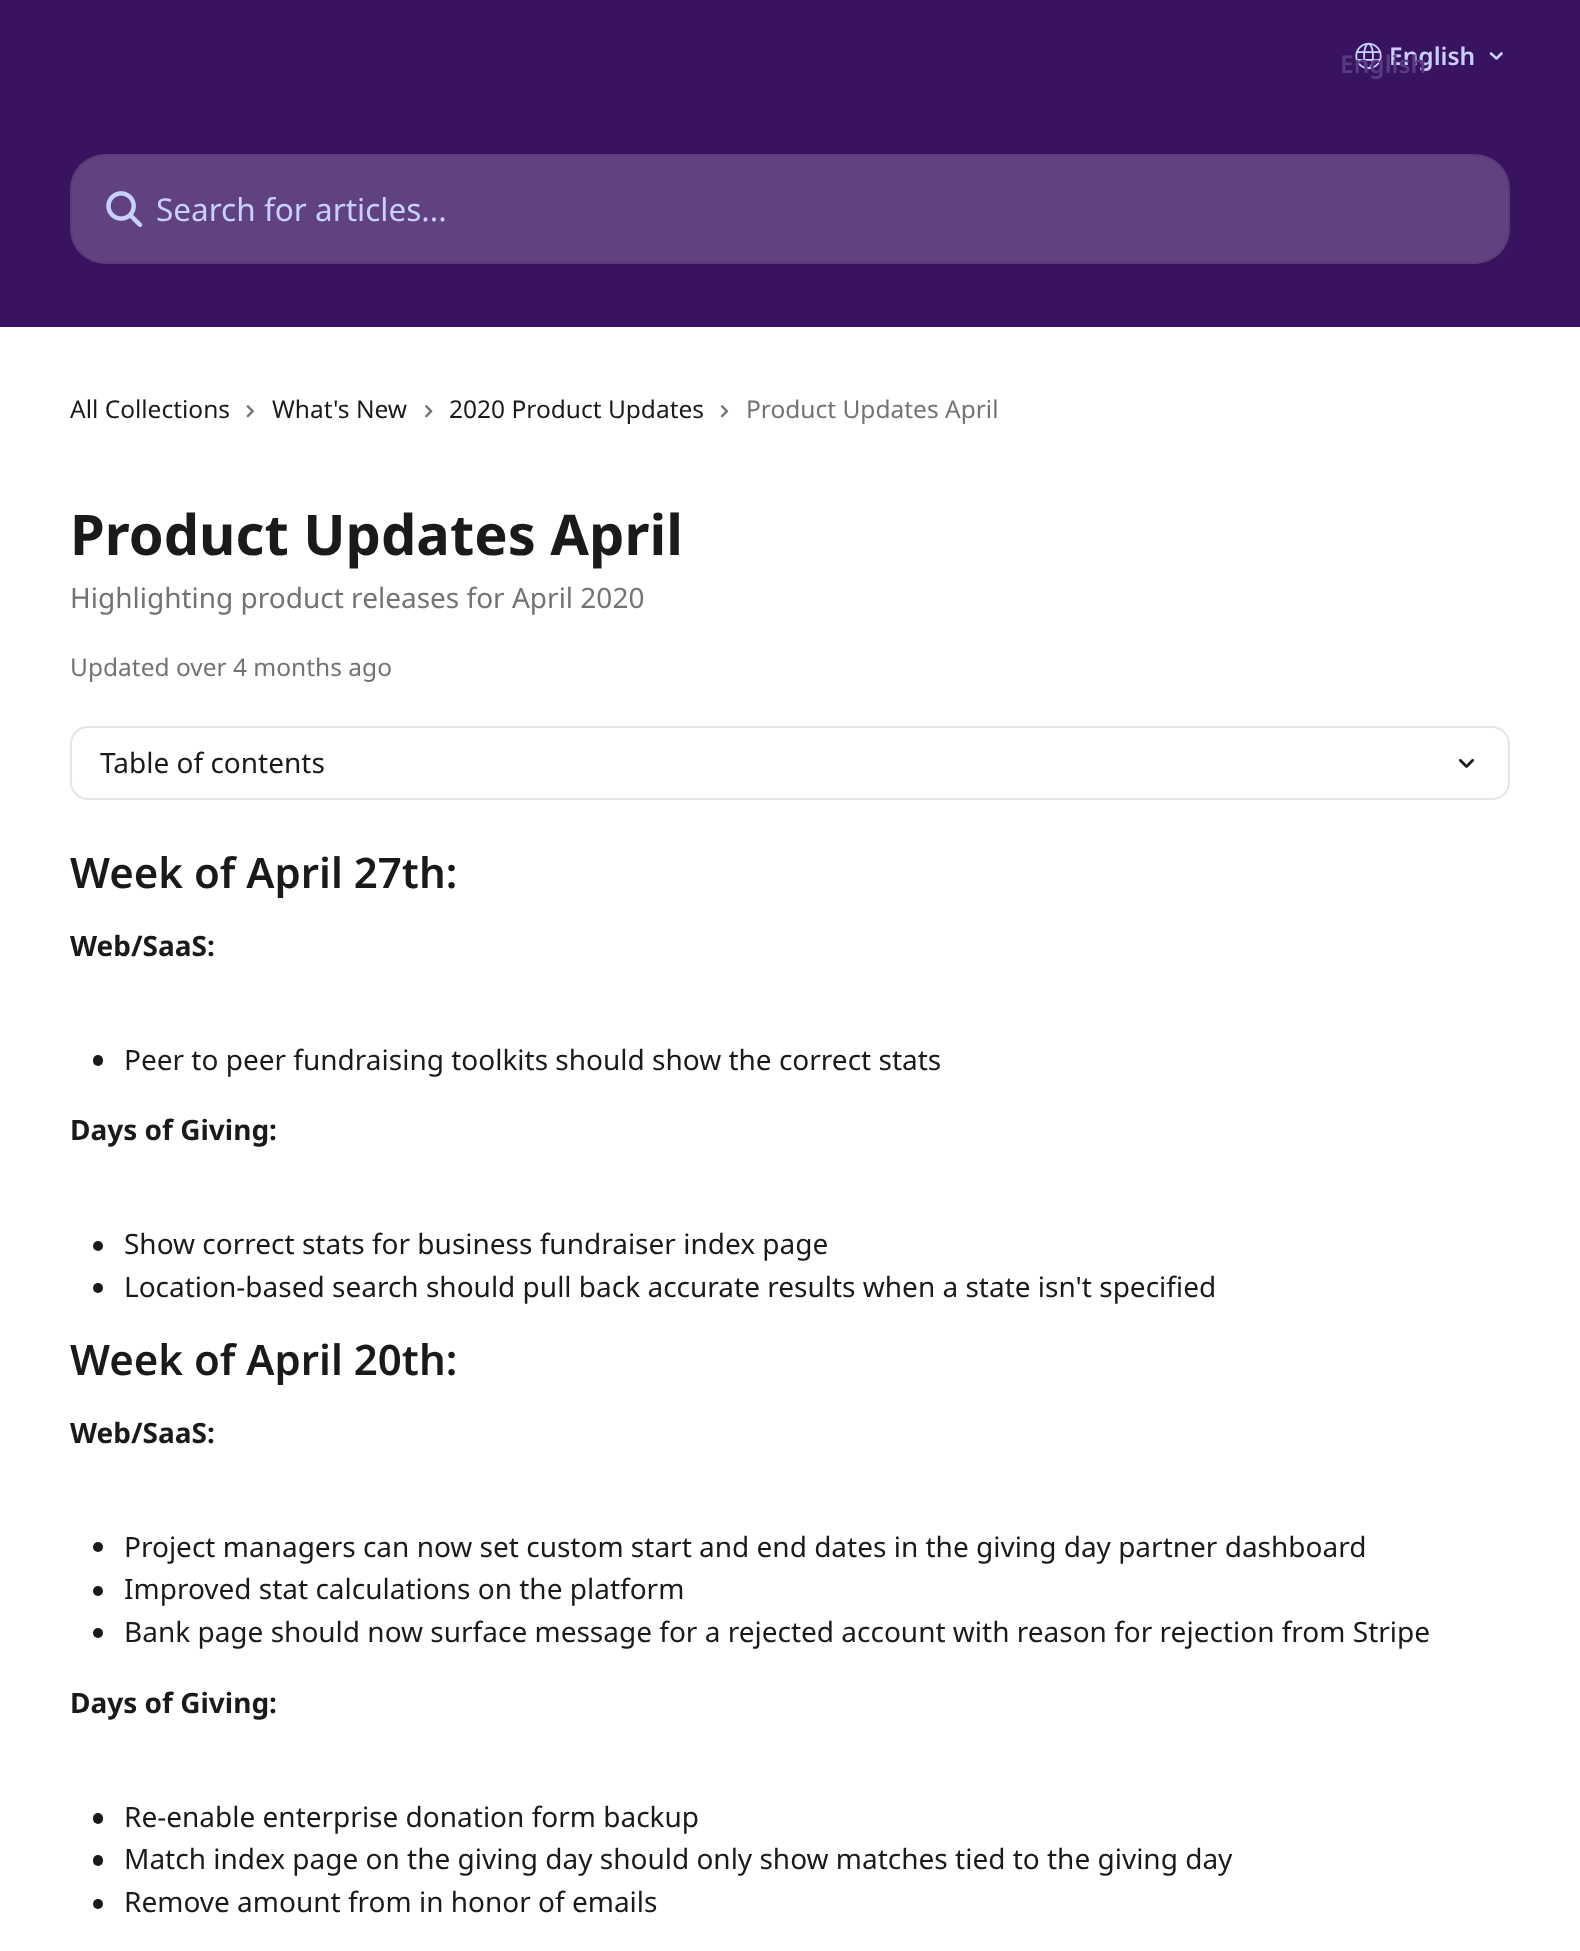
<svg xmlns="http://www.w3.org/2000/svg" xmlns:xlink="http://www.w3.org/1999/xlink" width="1580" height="1951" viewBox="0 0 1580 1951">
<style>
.cls-1{font:600 24.5px Noto Sans;fill:#c7d0ff}
.cls-2{font:600 24.5px Noto Sans;fill:#573c82}
.cls-3{font:31.5px Noto Sans;fill:#c7d0ff}
.cls-4{font:24.5px Noto Sans;fill:#1a1a1a}
.cls-5{font:24.5px Noto Sans;fill:#737373}
.cls-6{font:bold 56px Noto Sans;fill:#1a1a1a}
.cls-7{font:28px Noto Sans;fill:#737373}
.cls-8{font:28px Noto Sans;fill:#1a1a1a}
.cls-9{font:600 42px Noto Sans;fill:#1a1a1a}
.cls-10{font:bold 28px Noto Sans;fill:#1a1a1a}
</style>
<rect width="100%" height="100%" fill="#ffffff"/>
<rect fill="#381360" x="0" y="0" width="1580" height="327"/>
<image xlink:href="image0.png" x="1355" y="42" width="27" height="28"/>
<path fill="none" stroke="#c7d0ff" stroke-width="2.6" stroke-linecap="round" stroke-linejoin="round" d="M1491 53.5L1496.5 58.5L1501.5 53.5"/>
<rect fill="#604280" x="70" y="154" width="1440" height="110" rx="35"/>
<rect fill="none" stroke="#000000" stroke-opacity="0.08" stroke-width="2" x="71" y="155" width="1438" height="108" rx="34"/>
<image xlink:href="image1.png" x="106" y="191" width="37" height="36"/>
<image xlink:href="image2.png" x="246" y="405" width="8" height="13"/>
<image xlink:href="image3.png" x="425" y="405" width="8" height="13"/>
<image xlink:href="image4.png" x="720" y="405" width="9" height="13"/>
<rect fill="none" stroke="#e6e6e6" stroke-width="2" x="71" y="727" width="1438" height="72" rx="17"/>
<image xlink:href="image5.png" x="1459" y="759" width="15" height="9"/>
<rect fill="#1a1a1a" x="93" y="1055" width="10" height="11" rx="5"/>
<circle fill="#1a1a1a" cx="98" cy="1246" r="5"/>
<circle fill="#1a1a1a" cx="98" cy="1288" r="5"/>
<circle fill="#1a1a1a" cx="98" cy="1547" r="5"/>
<circle fill="#1a1a1a" cx="98" cy="1591" r="5"/>
<circle fill="#1a1a1a" cx="98" cy="1633" r="5"/>
<rect fill="#1a1a1a" x="93" y="1813" width="10" height="11" rx="5"/>
<rect fill="#1a1a1a" x="93" y="1855" width="10" height="11" rx="5"/>
<circle fill="#1a1a1a" cx="98" cy="1904" r="5"/>
<text class="cls-1" x="1389" y="65">English</text>
<text class="cls-2" x="1340" y="73">English</text>
<text class="cls-3" x="156" y="221">Search for articles...</text>
<text class="cls-4" x="70" y="418">All Collections</text>
<text class="cls-4" x="272" y="418">What's New</text>
<text class="cls-4" x="449" y="418">2020 Product Updates</text>
<text class="cls-5" x="746" y="418">Product Updates April</text>
<text class="cls-6" x="70" y="555">Product Updates April</text>
<text class="cls-7" x="70" y="608">Highlighting product releases for April 2020</text>
<text class="cls-5" x="70" y="676">Updated over 4 months ago</text>
<text class="cls-8" x="100" y="773">Table of contents</text>
<text class="cls-9" x="70" y="888">Week of April 27th:</text>
<text class="cls-10" x="70" y="956">Web/SaaS:</text>
<text class="cls-8" x="124" y="1070">Peer to peer fundraising toolkits should show the correct stats</text>
<text class="cls-10" x="70" y="1140">Days of Giving:</text>
<text class="cls-8"><tspan x="124" y="1254">Show correct stats for business fundraiser index page</tspan><tspan x="124" y="1297">Location-based search should pull back accurate results when a state isn't specified</tspan></text>
<text class="cls-9" x="70" y="1375">Week of April 20th:</text>
<text class="cls-10" x="70" y="1443">Web/SaaS:</text>
<text class="cls-8"><tspan x="124" y="1557">Project managers can now set custom start and end dates in the giving day partner dashboard</tspan><tspan x="124" y="1599">Improved stat calculations on the platform</tspan><tspan x="124" y="1642">Bank page should now surface message for a rejected account with reason for rejection from Stripe</tspan></text>
<text class="cls-10" x="70" y="1713">Days of Giving:</text>
<text class="cls-8"><tspan x="124" y="1827">Re-enable enterprise donation form backup</tspan><tspan x="124" y="1869">Match index page on the giving day should only show matches tied to the giving day</tspan><tspan x="124" y="1912">Remove amount from in honor of emails</tspan></text>
</svg>
